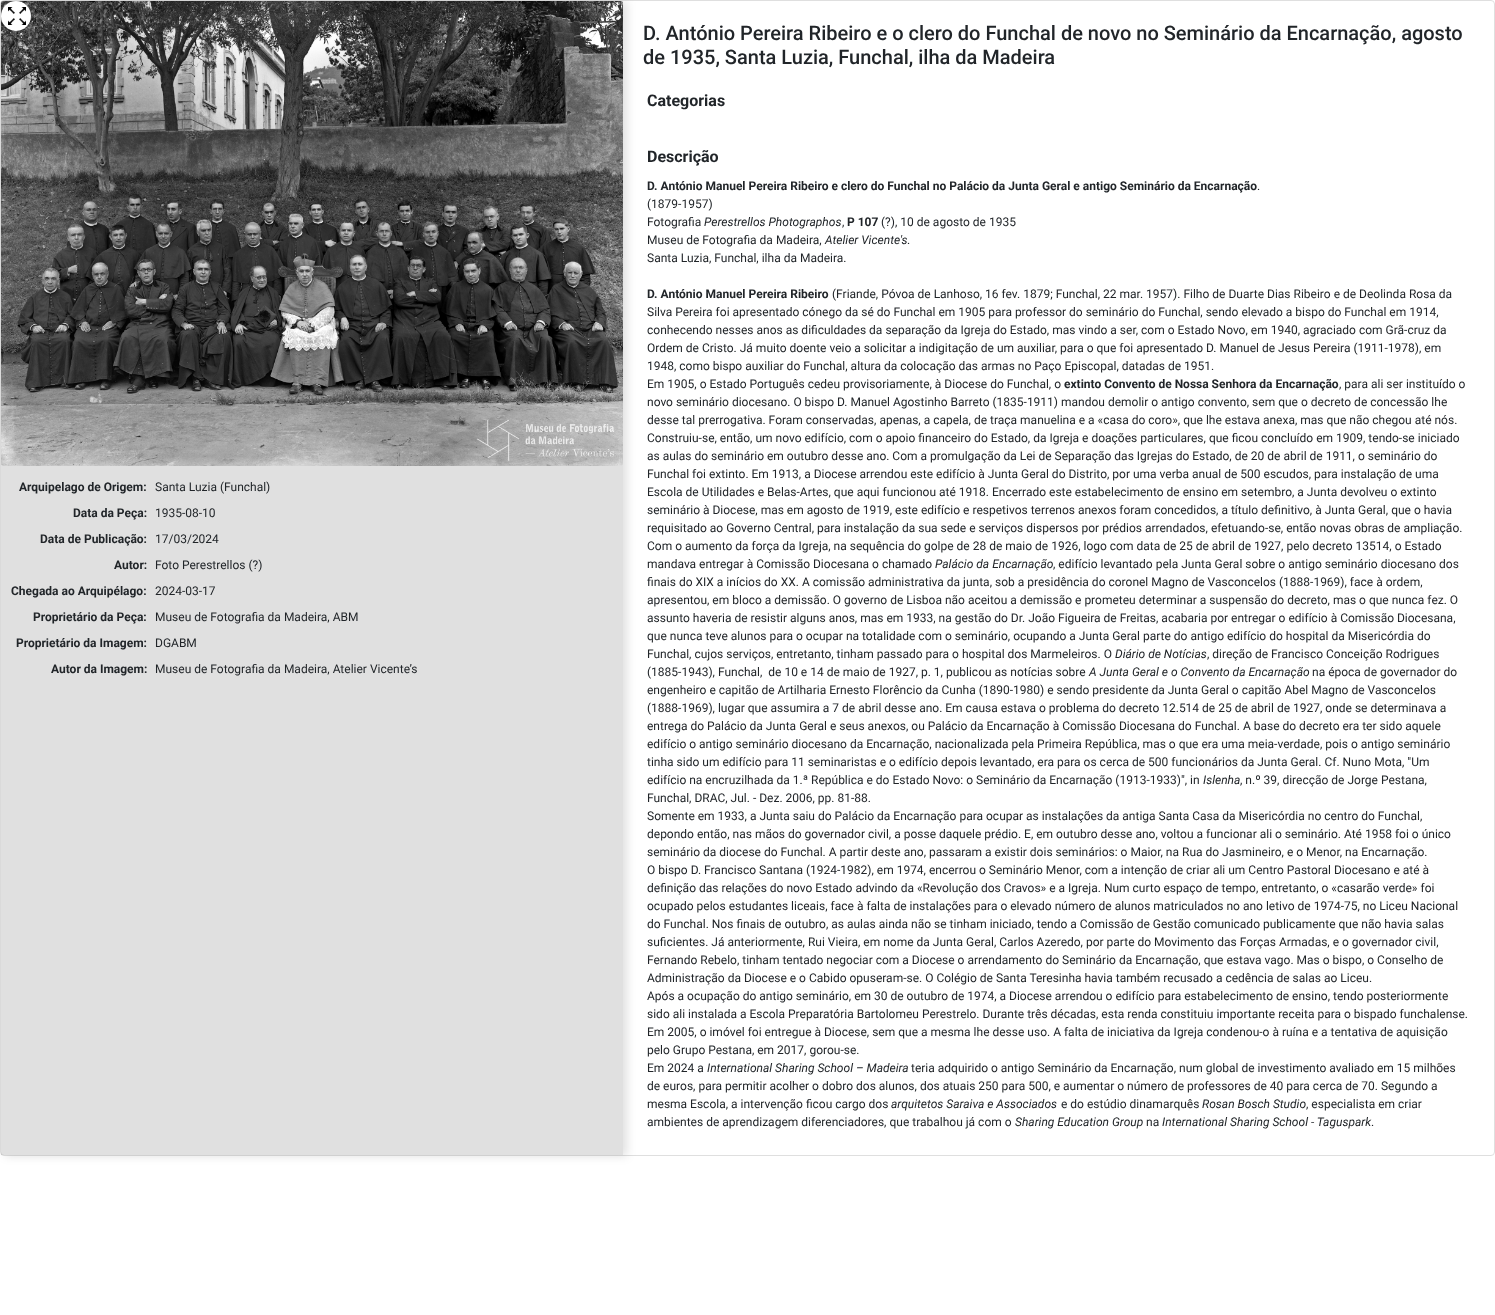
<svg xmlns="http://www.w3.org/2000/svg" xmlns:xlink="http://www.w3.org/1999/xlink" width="1495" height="1315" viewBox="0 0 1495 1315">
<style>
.cls-1{font:bold 12px Roboto;fill:#212529}
.cls-2{font:12px Roboto;fill:#212529}
.cls-3{font:500 20px Roboto;fill:#212529}
.cls-4{font:bold 16px Roboto;fill:#212529}
.cls-5{font:italic 12px Roboto;fill:#212529}
</style>
<defs>
<clipPath id="clip1"><path d="M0 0H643V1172H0ZM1 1H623V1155H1Z" clip-rule="evenodd"/></clipPath>
</defs>
<rect width="100%" height="100%" fill="#ffffff"/>
<rect fill="none" stroke="#dfdfdf" x="0.5" y="0.5" width="1494" height="1155" rx="3.5"/>
<g clip-path="url(#clip1)">
<rect fill="#000000" fill-opacity="0.12" filter="blur(5px)" x="5" y="2" width="622" height="1154"/>
</g>
<rect fill="#000000" fill-opacity="0.12" x="1" y="1" width="622" height="1154"/>
<image xlink:href="image0.png" x="1" y="1" width="622" height="465"/>
<circle fill="#ffffff" cx="16" cy="16" r="15"/>
<image xlink:href="image1.png" x="8" y="7" width="18" height="18"/>
<text class="cls-1" x="19" y="491">Arquipelago de Origem:</text>
<text class="cls-2" x="155" y="491">Santa Luzia (Funchal)</text>
<text class="cls-1" x="73" y="517">Data da Peça:</text>
<text class="cls-2" x="155" y="517">1935-08-10</text>
<text class="cls-1" x="40" y="543">Data de Publicação:</text>
<text class="cls-2" x="155" y="543">17/03/2024</text>
<text class="cls-1" x="114" y="569">Autor:</text>
<text class="cls-2" x="155" y="569">Foto Perestrellos (?)</text>
<text class="cls-1" x="11" y="595">Chegada ao Arquipélago:</text>
<text class="cls-2" x="155" y="595">2024-03-17</text>
<text class="cls-1" x="33" y="621">Proprietário da Peça:</text>
<text class="cls-2" x="155" y="621">Museu de Fotografia da Madeira, ABM</text>
<text class="cls-1" x="16" y="647">Proprietário da Imagem:</text>
<text class="cls-2" x="155" y="647">DGABM</text>
<text class="cls-1" x="51" y="673">Autor da Imagem:</text>
<text class="cls-2" x="155" y="673">Museu de Fotografia da Madeira, Atelier Vicente’s</text>
<text class="cls-3"><tspan x="643" y="40">D. António Pereira Ribeiro e o clero do Funchal de novo no Seminário da Encarnação, agosto</tspan><tspan x="643" y="64">de 1935, Santa Luzia, Funchal, ilha da Madeira</tspan></text>
<text class="cls-4" x="647" y="106">Categorias</text>
<text class="cls-4" x="647" y="162">Descrição</text>
<text class="cls-1" x="647" y="190">D. António Manuel Pereira Ribeiro e clero do Funchal no Palácio da Junta Geral e antigo Seminário da Encarnação</text>
<text class="cls-2" x="1257" y="190">.</text>
<text class="cls-2"><tspan x="647" y="208">(1879-1957)</tspan><tspan x="647" y="226">Fotografia</tspan></text>
<text class="cls-5" x="704" y="226">Perestrellos Photographos</text>
<text class="cls-2" x="842" y="226">,</text>
<text class="cls-1" x="847" y="226">P 107</text>
<text class="cls-2" x="881" y="226">(?), 10 de agosto de 1935</text>
<text class="cls-2" x="647" y="244">Museu de Fotografia da Madeira,</text>
<text class="cls-5" x="825" y="244">Atelier Vicente's</text>
<text class="cls-2" x="907" y="244">.</text>
<text class="cls-2" x="647" y="262">Santa Luzia, Funchal, ilha da Madeira.</text>
<text class="cls-1" x="647" y="298">D. António Manuel Pereira Ribeiro</text>
<text class="cls-2" x="832" y="298">(Friande, Póvoa de Lanhoso, 16 fev. 1879; Funchal, 22 mar. 1957). Filho de Duarte Dias Ribeiro e de Deolinda Rosa da</text>
<text class="cls-2"><tspan x="647" y="316">Silva Pereira foi apresentado cónego da sé do Funchal em 1905 para professor do seminário do Funchal, sendo elevado a bispo do Funchal em 1914,</tspan><tspan x="647" y="334">conhecendo nesses anos as dificuldades da separação da Igreja do Estado, mas vindo a ser, com o Estado Novo, em 1940, agraciado com Grã-cruz da</tspan><tspan x="647" y="352">Ordem de Cristo. Já muito doente veio a solicitar a indigitação de um auxiliar, para o que foi apresentado D. Manuel de Jesus Pereira (1911-1978), em</tspan><tspan x="647" y="370">1948, como bispo auxiliar do Funchal, altura da colocação das armas no Paço Episcopal, datadas de 1951.</tspan><tspan x="647" y="388">Em 1905, o Estado Português cedeu provisoriamente, à Diocese do Funchal, o</tspan></text>
<text class="cls-1" x="1064" y="388">extinto Convento de Nossa Senhora da Encarnação</text>
<text class="cls-2" x="1339" y="388">, para ali ser instituído o</text>
<text class="cls-2"><tspan x="647" y="406">novo seminário diocesano. O bispo D. Manuel Agostinho Barreto (1835-1911) mandou demolir o antigo convento, sem que o decreto de concessão lhe</tspan><tspan x="647" y="424">desse tal prerrogativa. Foram conservadas, apenas, a capela, de traça manuelina e a «casa do coro», que lhe estava anexa, mas que não chegou até nós.</tspan><tspan x="647" y="442">Construiu-se, então, um novo edifício, com o apoio financeiro do Estado, da Igreja e doações particulares, que ficou concluído em 1909, tendo-se iniciado</tspan><tspan x="647" y="460">as aulas do seminário em outubro desse ano. Com a promulgação da Lei de Separação das Igrejas do Estado, de 20 de abril de 1911, o seminário do</tspan><tspan x="647" y="478">Funchal foi extinto. Em 1913, a Diocese arrendou este edifício à Junta Geral do Distrito, por uma verba anual de 500 escudos, para instalação de uma</tspan><tspan x="647" y="496">Escola de Utilidades e Belas-Artes, que aqui funcionou até 1918. Encerrado este estabelecimento de ensino em setembro, a Junta devolveu o extinto</tspan><tspan x="647" y="514">seminário à Diocese, mas em agosto de 1919, este edifício e respetivos terrenos anexos foram concedidos, a título definitivo, à Junta Geral, que o havia</tspan><tspan x="647" y="532">requisitado ao Governo Central, para instalação da sua sede e serviços dispersos por prédios arrendados, efetuando-se, então novas obras de ampliação.</tspan><tspan x="647" y="550">Com o aumento da força da Igreja, na sequência do golpe de 28 de maio de 1926, logo com data de 25 de abril de 1927, pelo decreto 13514, o Estado</tspan><tspan x="647" y="568">mandava entregar à Comissão Diocesana o chamado</tspan></text>
<text class="cls-5" x="935" y="568">Palácio da Encarnação</text>
<text class="cls-2" x="1053" y="568">, edifício levantado pela Junta Geral sobre o antigo seminário diocesano dos</text>
<text class="cls-2"><tspan x="647" y="586">finais do XIX a inícios do XX. A comissão administrativa da junta, sob a presidência do coronel Magno de Vasconcelos (1888-1969), face à ordem,</tspan><tspan x="647" y="604">apresentou, em bloco a demissão. O governo de Lisboa não aceitou a demissão e prometeu determinar a suspensão do decreto, mas o que nunca fez. O</tspan><tspan x="647" y="622">assunto haveria de resistir alguns anos, mas em 1933, na gestão do Dr. João Figueira de Freitas, acabaria por entregar o edifício à Comissão Diocesana,</tspan><tspan x="647" y="640">que nunca teve alunos para o ocupar na totalidade com o seminário, ocupando a Junta Geral parte do antigo edifício do hospital da Misericórdia do</tspan><tspan x="647" y="658">Funchal, cujos serviços, entretanto, tinham passado para o hospital dos Marmeleiros. O</tspan></text>
<text class="cls-5" x="1115" y="658">Diário de Notícias</text>
<text class="cls-2" x="1207" y="658">, direção de Francisco Conceição Rodrigues</text>
<text class="cls-2" xml:space="preserve" x="647" y="676">(1885-1943), Funchal,  de 10 e 14 de maio de 1927, p. 1, publicou as notícias sobre</text>
<text class="cls-5" x="1089" y="676">A Junta Geral e o Convento da Encarnação</text>
<text class="cls-2" x="1312" y="676">na época de governador do</text>
<text class="cls-2"><tspan x="647" y="694">engenheiro e capitão de Artilharia Ernesto Florêncio da Cunha (1890-1980) e sendo presidente da Junta Geral o capitão Abel Magno de Vasconcelos</tspan><tspan x="647" y="712">(1888-1969), lugar que assumira a 7 de abril desse ano. Em causa estava o problema do decreto 12.514 de 25 de abril de 1927, onde se determinava a</tspan><tspan x="647" y="730">entrega do Palácio da Junta Geral e seus anexos, ou Palácio da Encarnação à Comissão Diocesana do Funchal. A base do decreto era ter sido aquele</tspan><tspan x="647" y="748">edifício o antigo seminário diocesano da Encarnação, nacionalizada pela Primeira República, mas o que era uma meia-verdade, pois o antigo seminário</tspan><tspan x="647" y="766">tinha sido um edifício para 11 seminaristas e o edifício depois levantado, era para os cerca de 500 funcionários da Junta Geral. Cf. Nuno Mota, "Um</tspan><tspan x="647" y="784">edifício na encruzilhada da 1.ª República e do Estado Novo: o Seminário da Encarnação (1913-1933)", in</tspan></text>
<text class="cls-5" x="1203" y="784">Islenha</text>
<text class="cls-2" x="1240" y="784">, n.º 39, direcção de Jorge Pestana,</text>
<text class="cls-2"><tspan x="647" y="802">Funchal, DRAC, Jul. - Dez. 2006, pp. 81-88.</tspan><tspan x="647" y="820">Somente em 1933, a Junta saiu do Palácio da Encarnação para ocupar as instalações da antiga Santa Casa da Misericórdia no centro do Funchal,</tspan><tspan x="647" y="838">depondo então, nas mãos do governador civil, a posse daquele prédio. E, em outubro desse ano, voltou a funcionar ali o seminário. Até 1958 foi o único</tspan><tspan x="647" y="856">seminário da diocese do Funchal. A partir deste ano, passaram a existir dois seminários: o Maior, na Rua do Jasmineiro, e o Menor, na Encarnação.</tspan><tspan x="647" y="874">O bispo D. Francisco Santana (1924-1982), em 1974, encerrou o Seminário Menor, com a intenção de criar ali um Centro Pastoral Diocesano e até à</tspan><tspan x="647" y="892">definição das relações do novo Estado advindo da «Revolução dos Cravos» e a Igreja. Num curto espaço de tempo, entretanto, o «casarão verde» foi</tspan><tspan x="647" y="910">ocupado pelos estudantes liceais, face à falta de instalações para o elevado número de alunos matriculados no ano letivo de 1974-75, no Liceu Nacional</tspan><tspan x="647" y="928">do Funchal. Nos finais de outubro, as aulas ainda não se tinham iniciado, tendo a Comissão de Gestão comunicado publicamente que não havia salas</tspan><tspan x="647" y="946">suficientes. Já anteriormente, Rui Vieira, em nome da Junta Geral, Carlos Azeredo, por parte do Movimento das Forças Armadas, e o governador civil,</tspan><tspan x="647" y="964">Fernando Rebelo, tinham tentado negociar com a Diocese o arrendamento do Seminário da Encarnação, que estava vago. Mas o bispo, o Conselho de</tspan><tspan x="647" y="982">Administração da Diocese e o Cabido opuseram-se. O Colégio de Santa Teresinha havia também recusado a cedência de salas ao Liceu.</tspan><tspan x="647" y="1000">Após a ocupação do antigo seminário, em 30 de outubro de 1974, a Diocese arrendou o edifício para estabelecimento de ensino, tendo posteriormente</tspan><tspan x="647" y="1018">sido ali instalada a Escola Preparatória Bartolomeu Perestrelo. Durante três décadas, esta renda constituiu importante receita para o bispado funchalense.</tspan><tspan x="647" y="1036">Em 2005, o imóvel foi entregue à Diocese, sem que a mesma lhe desse uso. A falta de iniciativa da Igreja condenou-o à ruína e a tentativa de aquisição</tspan><tspan x="647" y="1054">pelo Grupo Pestana, em 2017, gorou-se.</tspan><tspan x="647" y="1072">Em 2024 a</tspan></text>
<text class="cls-5" x="707" y="1072">International Sharing School – Madeira</text>
<text class="cls-2" x="911" y="1072">teria adquirido o antigo Seminário da Encarnação, num global de investimento avaliado em 15 milhões</text>
<text class="cls-2"><tspan x="647" y="1090">de euros, para permitir acolher o dobro dos alunos, dos atuais 250 para 500, e aumentar o número de professores de 40 para cerca de 70. Segundo a</tspan><tspan x="647" y="1108">mesma Escola, a intervenção ficou cargo dos</tspan></text>
<text class="cls-5" x="891" y="1108">arquitetos Saraiva e Associados</text>
<text class="cls-2" x="1061" y="1108">e do estúdio dinamarquês</text>
<text class="cls-5" x="1202" y="1108">Rosan Bosch Studio</text>
<text class="cls-2" x="1306" y="1108">, especialista em criar</text>
<text class="cls-2" x="647" y="1126">ambientes de aprendizagem diferenciadores, que trabalhou já com o</text>
<text class="cls-5" x="1015" y="1126">Sharing Education Group</text>
<text class="cls-2" x="1146" y="1126">na</text>
<text class="cls-5" x="1162" y="1126">International Sharing School - Taguspark</text>
<text class="cls-2" x="1371" y="1126">.</text>
</svg>
